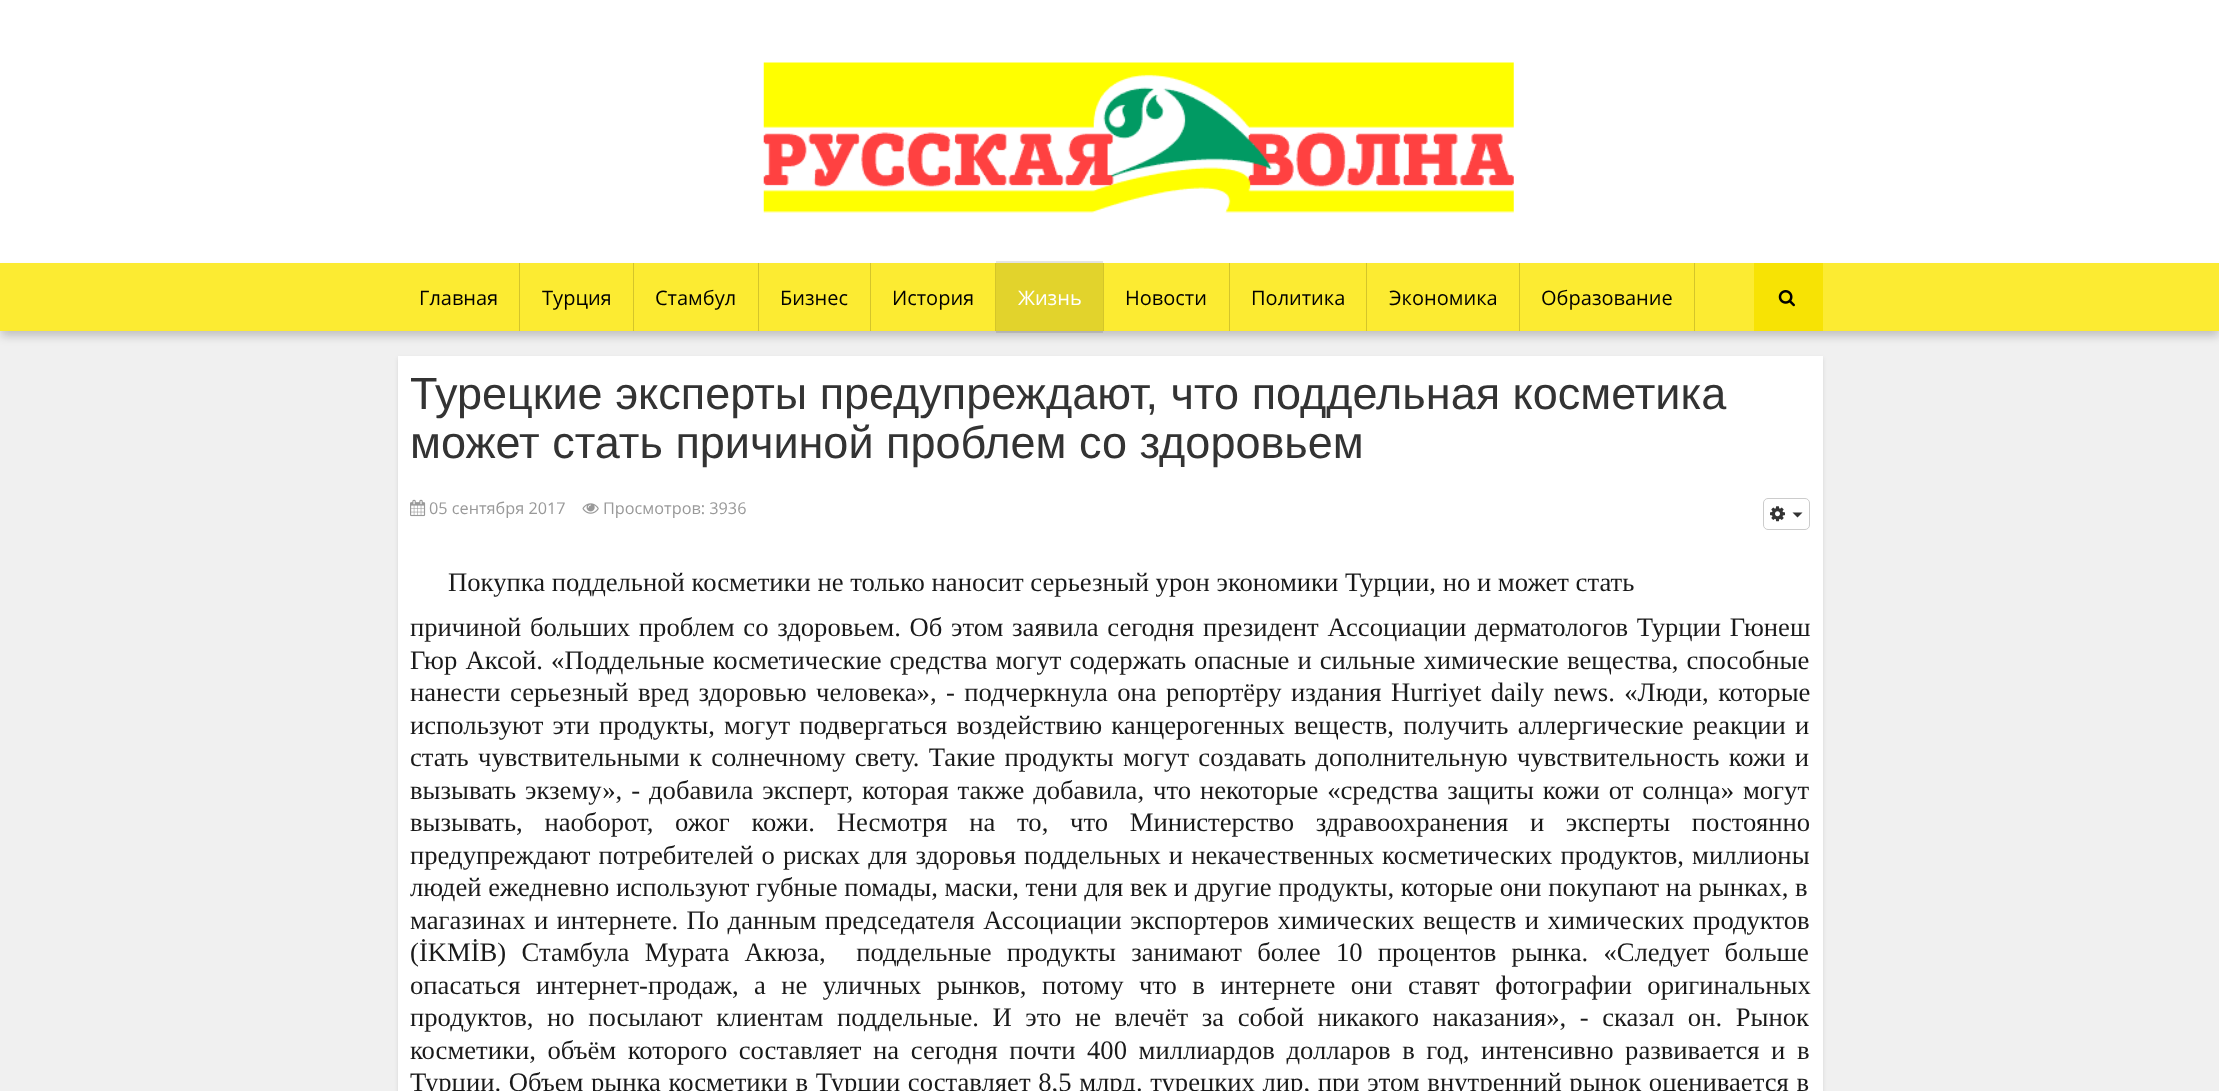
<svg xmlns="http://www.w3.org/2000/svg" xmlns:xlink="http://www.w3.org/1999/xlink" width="2219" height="1091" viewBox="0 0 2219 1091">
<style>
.cls-1{font:20px Open Sans;fill:#000000}
.cls-2{font:20px Open Sans;fill:#ffffff}
.cls-3{font:45px Liberation Sans;fill:#333333}
.cls-4{font:16.25px Open Sans;fill:#999999}
.cls-5{font:26.67px Liberation Serif;fill:#1a1a1a}
</style>
<rect width="100%" height="100%" fill="#f0f0f0"/>
<rect fill="#ffffff" x="0" y="0" width="2219" height="263"/>
<image xlink:href="image0.png" x="763" y="62" width="751" height="151"/>
<rect fill="#000000" fill-opacity="0.2" filter="blur(5px)" x="1" y="270" width="2218" height="66"/>
<rect fill="#fceb32" x="0" y="263" width="2219" height="68"/>
<rect fill="#d4c52a" x="519" y="263" width="1" height="68"/>
<rect fill="#d4c52a" x="633" y="263" width="1" height="68"/>
<rect fill="#d4c52a" x="758" y="263" width="1" height="68"/>
<rect fill="#d4c52a" x="870" y="263" width="1" height="68"/>
<rect fill="#d4c52a" x="995" y="263" width="1" height="68"/>
<rect fill="#d4c52a" x="1103" y="263" width="1" height="68"/>
<rect fill="#000000" fill-opacity="0.1" x="996" y="261" width="107" height="72"/>
<rect fill="#d4c52a" x="1229" y="263" width="1" height="68"/>
<rect fill="#d4c52a" x="1366" y="263" width="1" height="68"/>
<rect fill="#d4c52a" x="1519" y="263" width="1" height="68"/>
<rect fill="#d4c52a" x="1694" y="263" width="1" height="68"/>
<rect fill="#f7e304" x="1754" y="263" width="69" height="68"/>
<image xlink:href="image1.png" x="1778" y="290" width="17" height="17"/>
<rect fill="#000000" fill-opacity="0.1" filter="blur(2px)" x="398" y="358" width="1425" height="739"/>
<rect fill="#ffffff" x="398" y="356" width="1425" height="735"/>
<image xlink:href="image2.png" x="410" y="499" width="16" height="18"/>
<image xlink:href="image3.png" x="582" y="503" width="17" height="11"/>
<rect fill="none" stroke="#cccccc" x="1763.5" y="498.5" width="46" height="31" rx="4.5"/>
<image xlink:href="image4.png" x="1770" y="506" width="15" height="16"/>
<path fill="#333333" d="M1792.5 512.5H1802.5L1797.5 517.5Z"/>
<text class="cls-1" x="419" y="305">Главная</text>
<text class="cls-1" x="542" y="305">Турция</text>
<text class="cls-1" x="655" y="305">Стамбул</text>
<text class="cls-1" x="780" y="305">Бизнес</text>
<text class="cls-1" x="892" y="305">История</text>
<text class="cls-2" x="1018" y="305">Жизнь</text>
<text class="cls-1" x="1125" y="305">Новости</text>
<text class="cls-1" x="1251" y="305">Политика</text>
<text class="cls-1" x="1389" y="305">Экономика</text>
<text class="cls-1" x="1541" y="305">Образование</text>
<text class="cls-3"><tspan x="410" y="409">Турецкие эксперты предупреждают, что поддельная косметика</tspan><tspan x="410" y="458">может стать причиной проблем со здоровьем</tspan></text>
<text class="cls-4" x="429" y="514">05 сентября 2017</text>
<text class="cls-4" x="603" y="514">Просмотров: 3936</text>
<text class="cls-5" x="448" y="591">Покупка поддельной косметики не только наносит серьезный урон экономики Турции, но и может стать</text>
<text class="cls-5"><tspan x="410" y="636" word-spacing="2">причиной больших проблем со здоровьем. Об этом заявила сегодня президент Ассоциации дерматологов Турции Гюнеш</tspan><tspan x="410" y="669" word-spacing="1.4">Гюр Аксой. «Поддельные косметические средства могут содержать опасные и сильные химические вещества, способные</tspan><tspan x="410" y="701" word-spacing="2.75">нанести серьезный вред здоровью человека», - подчеркнула она репортёру издания</tspan></text>
<text class="cls-5" x="1391" y="701" word-spacing="2.75">Hurriyet daily news. «Люди, которые</text>
<text class="cls-5" xml:space="preserve"><tspan x="410" y="734" word-spacing="2.5">используют эти продукты, могут подвергаться воздействию канцерогенных веществ, получить аллергические реакции и</tspan><tspan x="410" y="766" word-spacing="2.6">стать чувствительными к солнечному свету. Такие продукты могут создавать дополнительную чувствительность кожи и</tspan><tspan x="410" y="799" word-spacing="2.25">вызывать экзему», - добавила эксперт, которая также добавила, что некоторые «средства защиты кожи от солнца» могут</tspan><tspan x="410" y="831" word-spacing="15">вызывать, наоборот, ожог кожи. Несмотря на то, что Министерство здравоохранения и эксперты постоянно</tspan><tspan x="410" y="864" word-spacing="1.4">предупреждают потребителей о рисках для здоровья поддельных и некачественных косметических продуктов, миллионы</tspan><tspan x="410" y="896">людей ежедневно используют губные помады, маски, тени для век и другие продукты, которые они покупают на рынках, в</tspan><tspan x="410" y="929" word-spacing="1.75">магазинах и интернете. По данным председателя Ассоциации экспортеров химических веществ и химических продуктов</tspan><tspan x="410" y="961" word-spacing="8.6">(İKMİB) Стамбула Мурата Акюза,  поддельные продукты занимают более 10 процентов рынка. «Следует больше</tspan><tspan x="410" y="994" word-spacing="8.75">опасаться интернет-продаж, а не уличных рынков, потому что в интернете они ставят фотографии оригинальных</tspan><tspan x="410" y="1026" word-spacing="6.9">продуктов, но посылают клиентам поддельные. И это не влечёт за собой никакого наказания», - сказал он. Рынок</tspan><tspan x="410" y="1059" word-spacing="4.9">косметики, объём которого составляет на сегодня почти 400 миллиардов долларов в год, интенсивно развивается и в</tspan><tspan x="410" y="1091" word-spacing="1">Турции. Объем рынка косметики в Турции составляет 8,5 млрд. турецких лир, при этом внутренний рынок оценивается в</tspan></text>
</svg>
